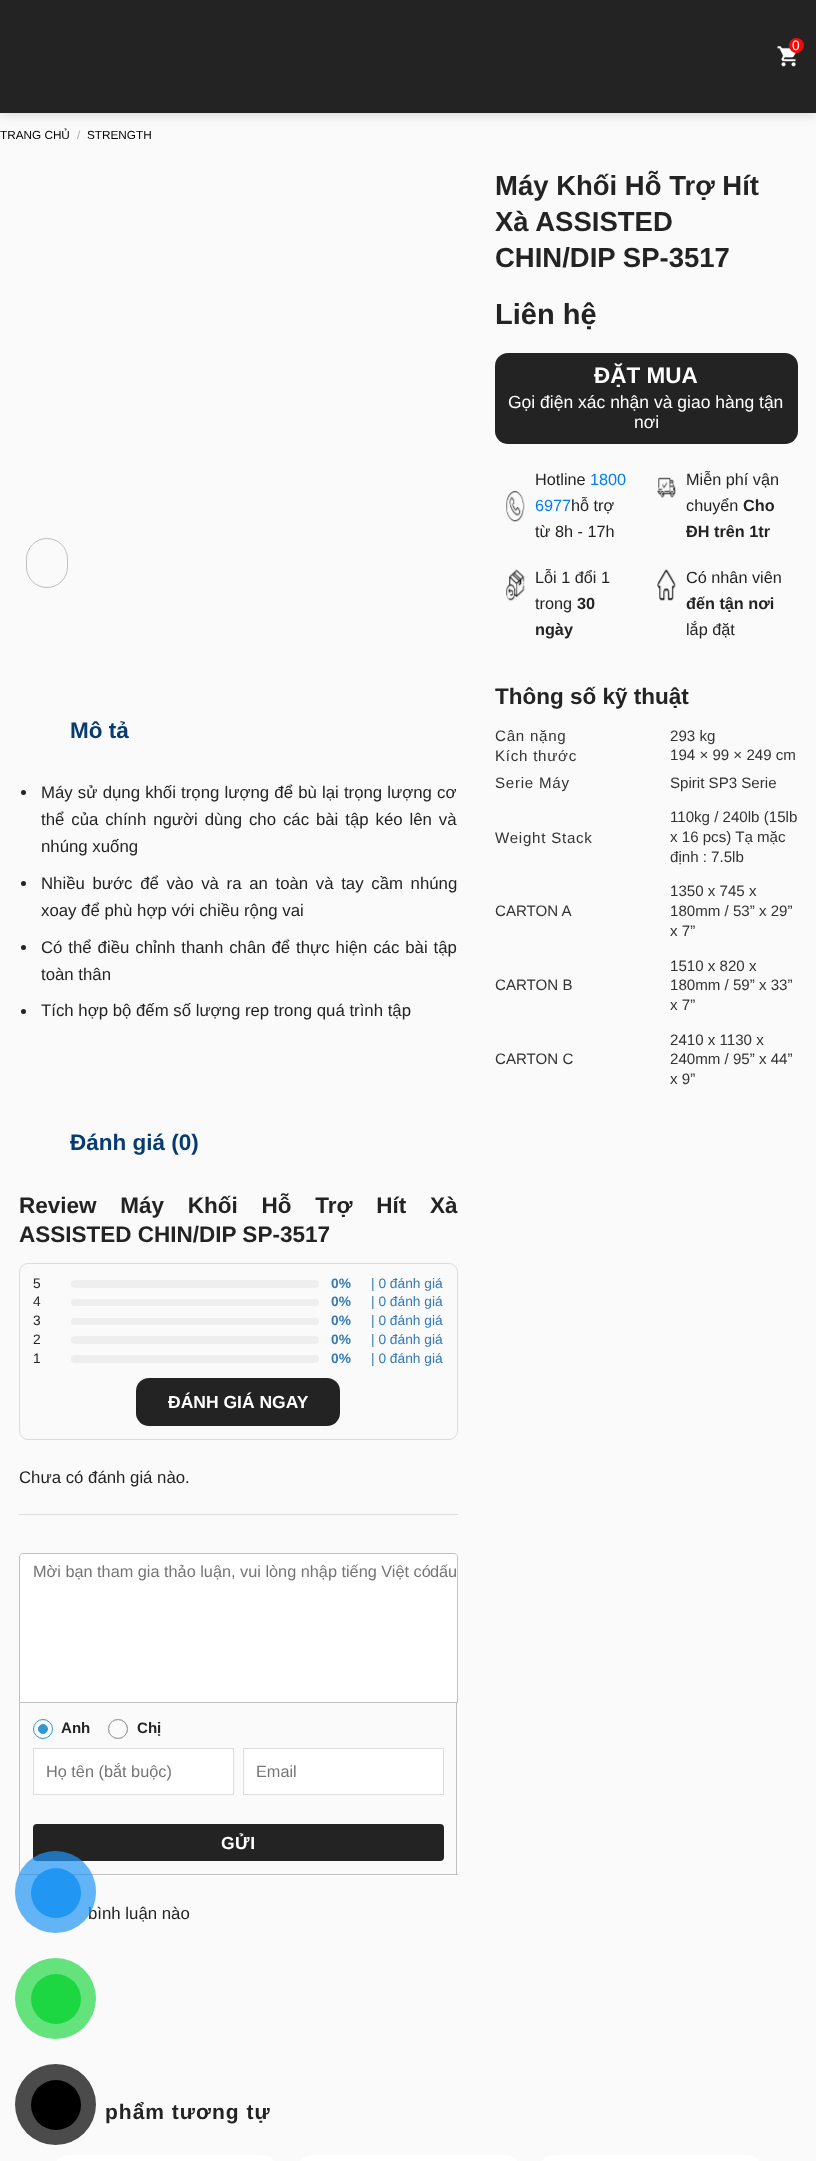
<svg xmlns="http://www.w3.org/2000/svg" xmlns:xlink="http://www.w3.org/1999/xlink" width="816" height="2161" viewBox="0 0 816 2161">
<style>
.cls-1{font:13.75px Liberation Sans;fill:#ffffff}
.cls-2{font:11.75px Liberation Sans;fill:#000000}
.cls-3{font:11.75px Liberation Sans;fill:#aeaeae}
.cls-4{font:bold 27.5px Liberation Sans;fill:#242323}
.cls-5{font:bold 29px Liberation Sans;fill:#242323}
.cls-6{font:bold 22.5px Liberation Sans;fill:#ffffff}
.cls-7{font:17.5px Liberation Sans;fill:#ffffff}
.cls-8{font:16.25px Liberation Sans;fill:#242323}
.cls-9{font:16.25px Liberation Sans;fill:#037ef1}
.cls-10{font:bold 16.25px Liberation Sans;fill:#242323}
.cls-11{font:bold 22.5px Liberation Sans;fill:#242323}
.cls-12{font:15.1px Liberation Sans;letter-spacing:0.75px;fill:#333333}
.cls-13{font:15.1px Liberation Sans;fill:#333333}
.cls-14{font:bold 22.5px Liberation Sans;fill:#083b72}
.cls-15{font:16.8px Liberation Sans;fill:#242323}
.cls-16{font:13.75px Liberation Sans;fill:#242323}
.cls-17{font:bold 13.75px Liberation Sans;fill:#337ab7}
.cls-18{font:13.75px Liberation Sans;fill:#337ab7}
.cls-19{font:bold 17.5px Liberation Sans;fill:#ffffff}
.cls-20{font:16.3px Liberation Sans;fill:#757575}
.cls-21{font:bold 15.1px Liberation Sans;fill:#242323}
.cls-22{font:bold 17.5px Liberation Sans;letter-spacing:0.5px;fill:#ffffff}
.cls-23{font:bold 21px Liberation Sans;letter-spacing:1px;fill:#242323}
</style>
<defs>
<clipPath id="clip1"><path d="M22.5 1554H453.5C455 1554 456 1555 456 1556.5V1701H20V1556.5C20 1555 21 1554 22.5 1554Z"/></clipPath>
</defs>
<rect width="100%" height="100%" fill="#fafafa"/>
<rect fill="#000000" fill-opacity="0.15" filter="blur(6px)" x="1" y="1" width="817" height="113"/>
<rect fill="#242323" x="0" y="0" width="816" height="113"/>
<image xlink:href="image0.png" x="777" y="46" width="19" height="21"/>
<circle fill="#f50808" cx="796.5" cy="45.5" r="7.5"/>
<rect fill="#242323" x="495" y="353" width="303" height="91" rx="13"/>
<image xlink:href="image1.png" x="506" y="491" width="19" height="31"/>
<image xlink:href="image2.png" x="657" y="477" width="19" height="21"/>
<image xlink:href="image3.png" x="506" y="569" width="19" height="32"/>
<image xlink:href="image4.png" x="657" y="569" width="19" height="32"/>
<rect fill="none" stroke="#c0c0c0" x="26.5" y="538.5" width="41" height="49" rx="20.5"/>
<circle fill="#242323" cx="23.5" cy="792.5" r="2.5"/>
<circle fill="#242323" cx="23.5" cy="883.5" r="2.5"/>
<circle fill="#242323" cx="23.5" cy="947.5" r="2.5"/>
<circle fill="#242323" cx="23.5" cy="1011.5" r="2.5"/>
<rect fill="#dddddd" x="19" y="1514" width="439" height="1"/>
<rect fill="none" stroke="#dddddd" x="19.5" y="1263.5" width="438" height="176" rx="8.5"/>
<rect fill="#eeeeee" x="71" y="1280" width="248" height="8" rx="4"/>
<rect fill="#eeeeee" x="71" y="1299" width="248" height="7" rx="3.5"/>
<rect fill="#eeeeee" x="71" y="1318" width="248" height="7" rx="3.5"/>
<rect fill="#eeeeee" x="71" y="1336" width="248" height="8" rx="4"/>
<rect fill="#eeeeee" x="71" y="1355" width="248" height="8" rx="4"/>
<rect fill="#242323" x="136" y="1378" width="204" height="48" rx="13"/>
<path fill="#ffffff" stroke="#c1bfbf" d="M23 1553.5H454C456 1553.5 457.5 1555 457.5 1557V1702.5H19.5V1557C19.5 1555 21 1553.5 23 1553.5Z"/>
<rect fill="#c1bfbf" x="456" y="1703" width="1" height="172"/>
<rect fill="#c1bfbf" x="19" y="1874" width="439" height="1"/>
<rect fill="#c1bfbf" x="19" y="1703" width="1" height="172"/>
<circle fill="none" stroke="#3398d2" cx="43" cy="1729" r="9.5"/>
<circle fill="#3398d2" stroke="#3398d2" cx="43" cy="1729" r="4.5"/>
<circle fill="none" stroke="#a6a6a6" cx="118" cy="1729" r="9.5"/>
<circle fill="none" stroke="#a6a6a6" cx="118" cy="1729" r="9.5"/>
<rect fill="#ffffff" stroke="#dddddd" x="33.5" y="1748.5" width="200" height="46"/>
<rect fill="#ffffff" stroke="#dddddd" x="243.5" y="1748.5" width="200" height="46"/>
<rect fill="#242323" x="33" y="1824" width="411" height="37" rx="4"/>
<rect fill="#ffffff" x="56" y="2155" width="219" height="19" rx="13"/>
<rect fill="#ffffff" x="299" y="2155" width="219" height="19" rx="13"/>
<rect fill="#ffffff" x="541" y="2155" width="219" height="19" rx="13"/>
<circle fill="#64e37d" cx="55.5" cy="1998.5" r="40.5"/>
<circle fill="#1cd741" cx="56" cy="1999" r="25"/>
<circle fill="#000000" fill-opacity="0.7" cx="55.5" cy="2104.5" r="40.5"/>
<circle fill="#000000" cx="56" cy="2105" r="25"/>
<text class="cls-1" x="792" y="50">0</text>
<text class="cls-2" x="0" y="139">TRANG CHỦ</text>
<text class="cls-3" x="77" y="139">/</text>
<text class="cls-2" x="87" y="139">STRENGTH</text>
<text class="cls-4"><tspan x="495" y="195">Máy Khối Hỗ Trợ Hít</tspan><tspan x="495" y="231">Xà ASSISTED</tspan><tspan x="495" y="267">CHIN/DIP SP-3517</tspan></text>
<text class="cls-5" x="495" y="324">Liên hệ</text>
<text class="cls-6" x="594" y="383">ĐẶT MUA</text>
<text class="cls-7" x="508" y="408">Gọi điện xác nhận và giao hàng tận</text>
<text class="cls-7" x="634" y="428">nơi</text>
<text class="cls-8" x="535" y="485">Hotline</text>
<text class="cls-9" x="590" y="485">1800</text>
<text class="cls-9" x="535" y="511">6977</text>
<text class="cls-8" x="571" y="511">hỗ trợ</text>
<text class="cls-8" x="535" y="537">từ 8h - 17h</text>
<text class="cls-8"><tspan x="686" y="485">Miễn phí vận</tspan><tspan x="686" y="511">chuyển</tspan></text>
<text class="cls-10" x="743" y="511">Cho</text>
<text class="cls-10" x="686" y="537">ĐH trên 1tr</text>
<text class="cls-8"><tspan x="535" y="583">Lỗi 1 đổi 1</tspan><tspan x="535" y="609">trong</tspan></text>
<text class="cls-10" x="577" y="609">30</text>
<text class="cls-10" x="535" y="635">ngày</text>
<text class="cls-8" x="686" y="583">Có nhân viên</text>
<text class="cls-10" x="686" y="609">đến tận nơi</text>
<text class="cls-8" x="686" y="635">lắp đặt</text>
<text class="cls-11" x="495" y="704">Thông số kỹ thuật</text>
<text class="cls-12" x="495" y="741">Cân nặng</text>
<text class="cls-13" x="670" y="741">293 kg</text>
<text class="cls-12" x="495" y="761">Kích thước</text>
<text class="cls-13" x="670" y="760">194 × 99 × 249 cm</text>
<text class="cls-12" x="495" y="788">Serie Máy</text>
<text class="cls-13" x="670" y="788">Spirit SP3 Serie</text>
<text class="cls-12" x="495" y="843">Weight Stack</text>
<text class="cls-13"><tspan x="670" y="822">110kg / 240lb (15lb</tspan><tspan x="670" y="842">x 16 pcs) Tạ mặc</tspan><tspan x="670" y="862">định : 7.5lb</tspan></text>
<text class="cls-13" x="495" y="916">CARTON A</text>
<text class="cls-13"><tspan x="670" y="896">1350 x 745 x</tspan><tspan x="670" y="916">180mm / 53” x 29”</tspan><tspan x="670" y="936">x 7”</tspan></text>
<text class="cls-13" x="495" y="990">CARTON B</text>
<text class="cls-13"><tspan x="670" y="971">1510 x 820 x</tspan><tspan x="670" y="990">180mm / 59” x 33”</tspan><tspan x="670" y="1010">x 7”</tspan></text>
<text class="cls-13" x="495" y="1064">CARTON C</text>
<text class="cls-13"><tspan x="670" y="1045">2410 x 1130 x</tspan><tspan x="670" y="1064">240mm / 95” x 44”</tspan><tspan x="670" y="1084">x 9”</tspan></text>
<text class="cls-14" x="70" y="738">Mô tả</text>
<text class="cls-15"><tspan x="41" y="798" word-spacing="0.5">Máy sử dụng khối trọng lượng để bù lại trọng lượng cơ</tspan><tspan x="41" y="825" word-spacing="2.25">thể của chính người dùng cho các bài tập kéo lên và</tspan><tspan x="41" y="852">nhúng xuống</tspan></text>
<text class="cls-15"><tspan x="41" y="889" word-spacing="3">Nhiều bước để vào và ra an toàn và tay cầm nhúng</tspan><tspan x="41" y="916">xoay để phù hợp với chiều rộng vai</tspan></text>
<text class="cls-15"><tspan x="41" y="953" word-spacing="1.25">Có thể điều chỉnh thanh chân để thực hiện các bài tập</tspan><tspan x="41" y="980">toàn thân</tspan></text>
<text class="cls-15" x="41" y="1016">Tích hợp bộ đếm số lượng rep trong quá trình tập</text>
<text class="cls-14" x="70" y="1150">Đánh giá (0)</text>
<text class="cls-11"><tspan x="19" y="1213" word-spacing="17.5">Review Máy Khối Hỗ Trợ Hít Xà</tspan><tspan x="19" y="1242">ASSISTED CHIN/DIP SP-3517</tspan></text>
<text class="cls-16" x="33" y="1288">5</text>
<text class="cls-17" x="331" y="1288">0%</text>
<text class="cls-18" x="371" y="1288">| 0 đánh giá</text>
<text class="cls-16" x="33" y="1306">4</text>
<text class="cls-17" x="331" y="1306">0%</text>
<text class="cls-18" x="371" y="1306">| 0 đánh giá</text>
<text class="cls-16" x="33" y="1325">3</text>
<text class="cls-17" x="331" y="1325">0%</text>
<text class="cls-18" x="371" y="1325">| 0 đánh giá</text>
<text class="cls-16" x="33" y="1344">2</text>
<text class="cls-17" x="331" y="1344">0%</text>
<text class="cls-18" x="371" y="1344">| 0 đánh giá</text>
<text class="cls-16" x="33" y="1363">1</text>
<text class="cls-17" x="331" y="1363">0%</text>
<text class="cls-18" x="371" y="1363">| 0 đánh giá</text>
<text class="cls-19" x="168" y="1408">ĐÁNH GIÁ NGAY</text>
<text class="cls-15" x="19" y="1483">Chưa có đánh giá nào.</text>
<text class="cls-20" x="33" y="1577">Mời bạn tham gia thảo luận, vui lòng nhập tiếng Việt có</text>
<g clip-path="url(#clip1)">
<text class="cls-20" x="430" y="1577">dấu</text>
</g>
<text class="cls-21" x="61" y="1733">Anh</text>
<text class="cls-21" x="137" y="1733">Chị</text>
<text class="cls-20" x="46" y="1777">Họ tên (bắt buộc)</text>
<text class="cls-20" x="256" y="1777">Email</text>
<text class="cls-22" x="221" y="1849">GỬI</text>
<text class="cls-15" x="88" y="1919">bình luận nào</text>
<text class="cls-23" x="105" y="2119">phẩm tương tự</text>
<rect fill="#2196f3" fill-opacity="0.7" x="15" y="1851" width="81" height="82" rx="40.5"/>
<circle fill="#2196f3" cx="56" cy="1893" r="25"/>
</svg>
